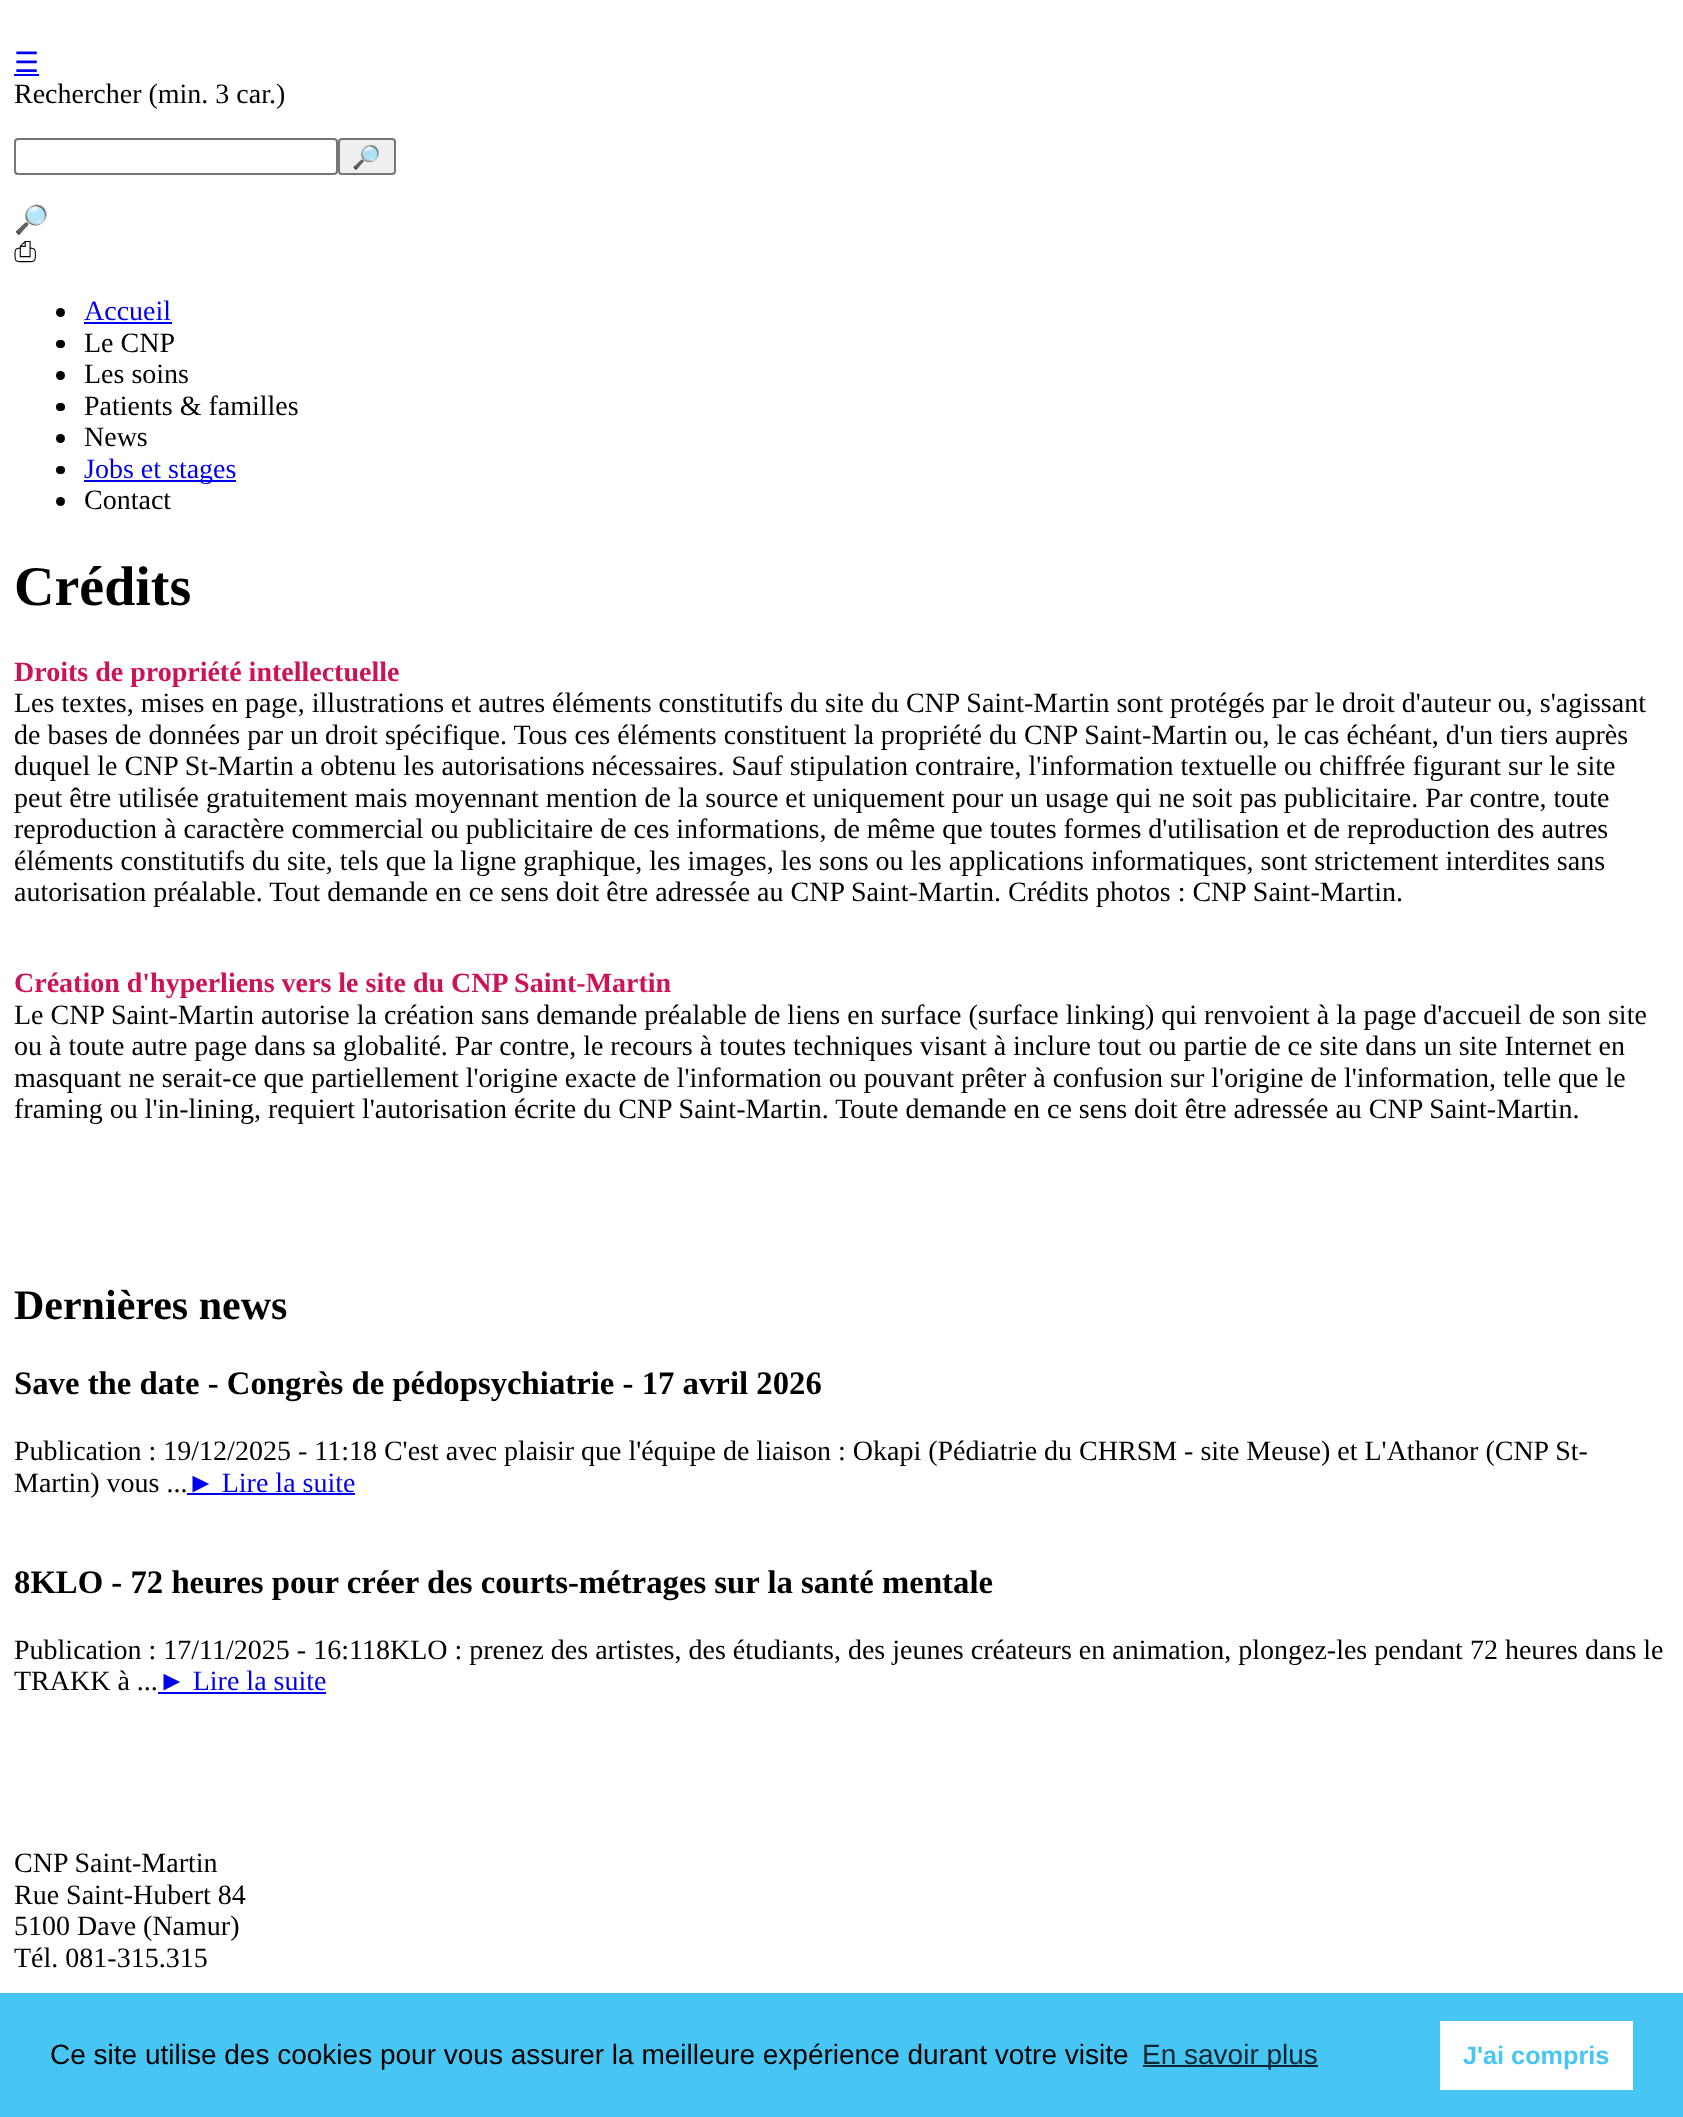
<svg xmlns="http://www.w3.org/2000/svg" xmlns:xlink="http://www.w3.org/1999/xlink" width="1683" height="2117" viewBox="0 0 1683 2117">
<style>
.cls-1{font:28px DejaVu Sans;fill:#0000ee}
.cls-2{font:28px Liberation Serif;fill:#000000}
.cls-3{font:23px Noto Color Emoji;fill:#000000}
.cls-4{font:28px Noto Color Emoji;fill:#000000}
.cls-5{font:28px FreeSerif;fill:#000000}
.cls-6{font:28px Liberation Serif;fill:#0000ee}
.cls-7{font:bold 56px Liberation Serif;fill:#000000}
.cls-8{font:bold 28px Liberation Serif;fill:#cc135a}
.cls-9{font:bold 42px Liberation Serif;fill:#000000}
.cls-10{font:bold 32.75px Liberation Serif;fill:#000000}
.cls-11{font:28px Liberation Sans;fill:#000000}
.cls-12{font:28px Liberation Sans;fill:#0e2731}
.cls-13{font:bold 25.25px Liberation Sans;fill:#47c5f3}
</style>
<rect width="100%" height="100%" fill="#ffffff"/>
<rect fill="#0000ee" x="14" y="74" width="25" height="2"/>
<rect fill="none" stroke="#767676" stroke-width="2" x="15" y="139" width="322" height="35" rx="3"/>
<rect fill="#efefef" stroke="#767676" stroke-width="2" x="339" y="139" width="56" height="35" rx="3"/>
<circle fill="#000000" cx="60.5" cy="312.5" r="4.5"/>
<rect fill="#0000ee" x="84" y="322" width="88" height="2"/>
<rect fill="#000000" x="56" y="340" width="9" height="8" rx="4"/>
<circle fill="#000000" cx="60.5" cy="375.5" r="4.5"/>
<rect fill="#000000" x="56" y="403" width="9" height="8" rx="4"/>
<circle fill="#000000" cx="60.5" cy="438.5" r="4.5"/>
<rect fill="#000000" x="56" y="466" width="9" height="8" rx="4"/>
<rect fill="#0000ee" x="84" y="480" width="152" height="2"/>
<circle fill="#000000" cx="60.5" cy="501.5" r="4.5"/>
<rect fill="#0000ee" x="187" y="1493" width="168" height="2"/>
<rect fill="#0000ee" x="158" y="1692" width="168" height="2"/>
<rect fill="#47c5f3" x="0" y="1993" width="1683" height="124"/>
<rect fill="#0e2731" x="1143" y="2065" width="175" height="2"/>
<rect fill="#ffffff" x="1440" y="2021" width="193" height="69"/>
<text class="cls-1" x="14" y="72">☰</text>
<text class="cls-2" x="14" y="103">Rechercher (min. 3 car.)</text>
<text class="cls-3" x="352" y="165">🔎</text>
<text class="cls-4" x="14" y="229">🔎</text>
<text class="cls-5" x="14" y="261">⎙</text>
<text class="cls-6" x="84" y="320">Accueil</text>
<text class="cls-2"><tspan x="84" y="352">Le CNP</tspan><tspan x="84" y="383">Les soins</tspan><tspan x="84" y="415">Patients &amp; familles</tspan><tspan x="84" y="446">News</tspan></text>
<text class="cls-6" x="84" y="478">Jobs et stages</text>
<text class="cls-2" x="84" y="509">Contact</text>
<text class="cls-7" x="14" y="605">Crédits</text>
<text class="cls-8" x="14" y="681">Droits de propriété intellectuelle</text>
<text class="cls-2"><tspan x="14" y="712">Les textes, mises en page, illustrations et autres éléments constitutifs du site du CNP Saint-Martin sont protégés par le droit d'auteur ou, s'agissant</tspan><tspan x="14" y="744">de bases de données par un droit spécifique. Tous ces éléments constituent la propriété du CNP Saint-Martin ou, le cas échéant, d'un tiers auprès</tspan><tspan x="14" y="775">duquel le CNP St-Martin a obtenu les autorisations nécessaires. Sauf stipulation contraire, l'information textuelle ou chiffrée figurant sur le site</tspan><tspan x="14" y="807">peut être utilisée gratuitement mais moyennant mention de la source et uniquement pour un usage qui ne soit pas publicitaire. Par contre, toute</tspan><tspan x="14" y="838">reproduction à caractère commercial ou publicitaire de ces informations, de même que toutes formes d'utilisation et de reproduction des autres</tspan><tspan x="14" y="870">éléments constitutifs du site, tels que la ligne graphique, les images, les sons ou les applications informatiques, sont strictement interdites sans</tspan><tspan x="14" y="901">autorisation préalable. Tout demande en ce sens doit être adressée au CNP Saint-Martin. Crédits photos : CNP Saint-Martin.</tspan></text>
<text class="cls-8" x="14" y="992">Création d'hyperliens vers le site du CNP Saint-Martin</text>
<text class="cls-2"><tspan x="14" y="1024">Le CNP Saint-Martin autorise la création sans demande préalable de liens en surface (surface linking) qui renvoient à la page d'accueil de son site</tspan><tspan x="14" y="1055">ou à toute autre page dans sa globalité. Par contre, le recours à toutes techniques visant à inclure tout ou partie de ce site dans un site Internet en</tspan><tspan x="14" y="1087">masquant ne serait-ce que partiellement l'origine exacte de l'information ou pouvant prêter à confusion sur l'origine de l'information, telle que le</tspan><tspan x="14" y="1118">framing ou l'in-lining, requiert l'autorisation écrite du CNP Saint-Martin. Toute demande en ce sens doit être adressée au CNP Saint-Martin.</tspan></text>
<text class="cls-9" x="14" y="1319">Dernières news</text>
<text class="cls-10" x="14" y="1394">Save the date - Congrès de pédopsychiatrie - 17 avril 2026</text>
<text class="cls-2"><tspan x="14" y="1460">Publication : 19/12/2025 - 11:18 C'est avec plaisir que l'équipe de liaison : Okapi (Pédiatrie du CHRSM - site Meuse) et L'Athanor (CNP St-</tspan><tspan x="14" y="1492">Martin) vous ...</tspan></text>
<text class="cls-6" x="187" y="1492">► Lire la suite</text>
<text class="cls-10" x="14" y="1593">8KLO - 72 heures pour créer des courts-métrages sur la santé mentale</text>
<text class="cls-2"><tspan x="14" y="1659">Publication : 17/11/2025 - 16:118KLO : prenez des artistes, des étudiants, des jeunes créateurs en animation, plongez-les pendant 72 heures dans le</tspan><tspan x="14" y="1690">TRAKK à ...</tspan></text>
<text class="cls-6" x="158" y="1690">► Lire la suite</text>
<text class="cls-2"><tspan x="14" y="1872">CNP Saint-Martin</tspan><tspan x="14" y="1904">Rue Saint-Hubert 84</tspan><tspan x="14" y="1935">5100 Dave (Namur)</tspan><tspan x="14" y="1967">Tél. 081-315.315</tspan></text>
<text class="cls-11" x="50" y="2064">Ce site utilise des cookies pour vous assurer la meilleure expérience durant votre visite</text>
<text class="cls-12" x="1142" y="2064">En savoir plus</text>
<text class="cls-13" x="1463" y="2064">J'ai compris</text>
</svg>
